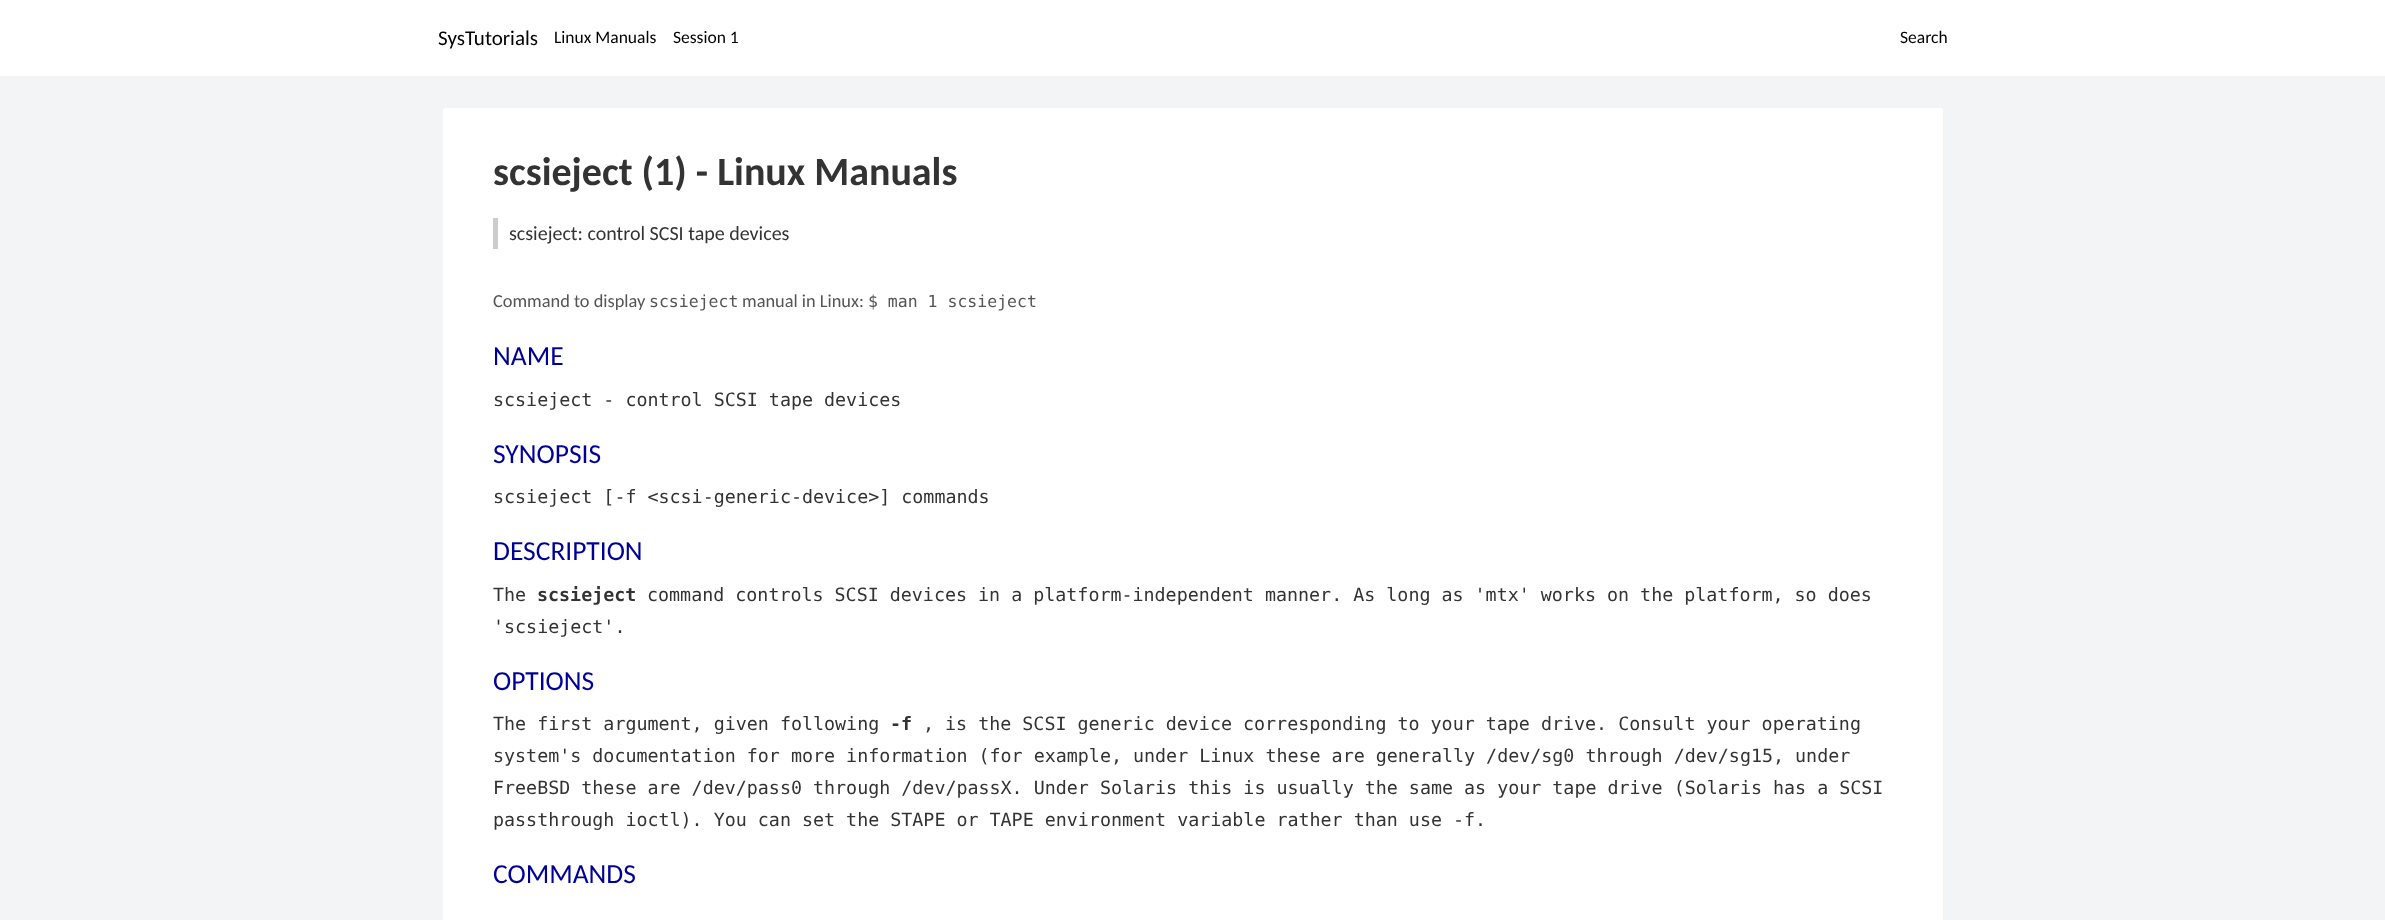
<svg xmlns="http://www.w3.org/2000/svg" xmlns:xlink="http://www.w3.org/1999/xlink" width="2385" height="920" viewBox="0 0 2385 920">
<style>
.cls-1{font:21px Carlito;fill:#000000}
.cls-2{font:17.5px Carlito;fill:#000000}
.cls-3{font:bold 40px Carlito;fill:#333333}
.cls-4{font:20px Carlito;fill:#333333}
.cls-5{font:18.33px Carlito;fill:#555555}
.cls-6{font:16.5px DejaVu Sans Mono;fill:#555555}
.cls-7{font:27.5px Carlito;fill:#000099}
.cls-8{font:18.33px DejaVu Sans Mono;fill:#333333}
.cls-9{font:bold 18.33px DejaVu Sans Mono;fill:#333333}
</style>
<rect width="100%" height="100%" fill="#f3f4f6"/>
<rect fill="#ffffff" x="0" y="0" width="2385" height="76"/>
<path fill="#ffffff" d="M445.5 108H1940.5C1942 108 1943 109 1943 110.5V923H443V110.5C443 109 444 108 445.5 108Z"/>
<rect fill="#cccccc" x="493" y="218" width="5" height="31"/>
<text class="cls-1" x="438" y="45">SysTutorials</text>
<text class="cls-2" x="554" y="43">Linux Manuals</text>
<text class="cls-2" x="673" y="43">Session 1</text>
<text class="cls-2" x="1900" y="43">Search</text>
<text class="cls-3" x="493" y="185">scsieject (1) - Linux Manuals</text>
<text class="cls-4" x="509" y="240">scsieject: control SCSI tape devices</text>
<text class="cls-5" x="493" y="307">Command to display</text>
<text class="cls-6" x="649" y="307">scsieject</text>
<text class="cls-5" x="742" y="307">manual in Linux:</text>
<text class="cls-6" x="868" y="307">$ man 1 scsieject</text>
<text class="cls-7" x="493" y="365">NAME</text>
<text class="cls-8" x="493" y="406">scsieject - control SCSI tape devices</text>
<text class="cls-7" x="493" y="463">SYNOPSIS</text>
<text class="cls-8" x="493" y="503">scsieject [-f &lt;scsi-generic-device&gt;] commands</text>
<text class="cls-7" x="493" y="560">DESCRIPTION</text>
<text class="cls-8" x="493" y="601">The</text>
<text class="cls-9" x="537" y="601">scsieject</text>
<text class="cls-8" x="647" y="601">command controls SCSI devices in a platform-independent manner. As long as 'mtx' works on the platform, so does</text>
<text class="cls-8" x="493" y="633">'scsieject'.</text>
<text class="cls-7" x="493" y="690">OPTIONS</text>
<text class="cls-8" x="493" y="730">The first argument, given following</text>
<text class="cls-9" x="890" y="730">-f</text>
<text class="cls-8" x="923" y="730">, is the SCSI generic device corresponding to your tape drive. Consult your operating</text>
<text class="cls-8"><tspan x="493" y="762">system's documentation for more information (for example, under Linux these are generally /dev/sg0 through /dev/sg15, under</tspan><tspan x="493" y="794">FreeBSD these are /dev/pass0 through /dev/passX. Under Solaris this is usually the same as your tape drive (Solaris has a SCSI</tspan><tspan x="493" y="826">passthrough ioctl). You can set the STAPE or TAPE environment variable rather than use -f.</tspan></text>
<text class="cls-7" x="493" y="883">COMMANDS</text>
</svg>
